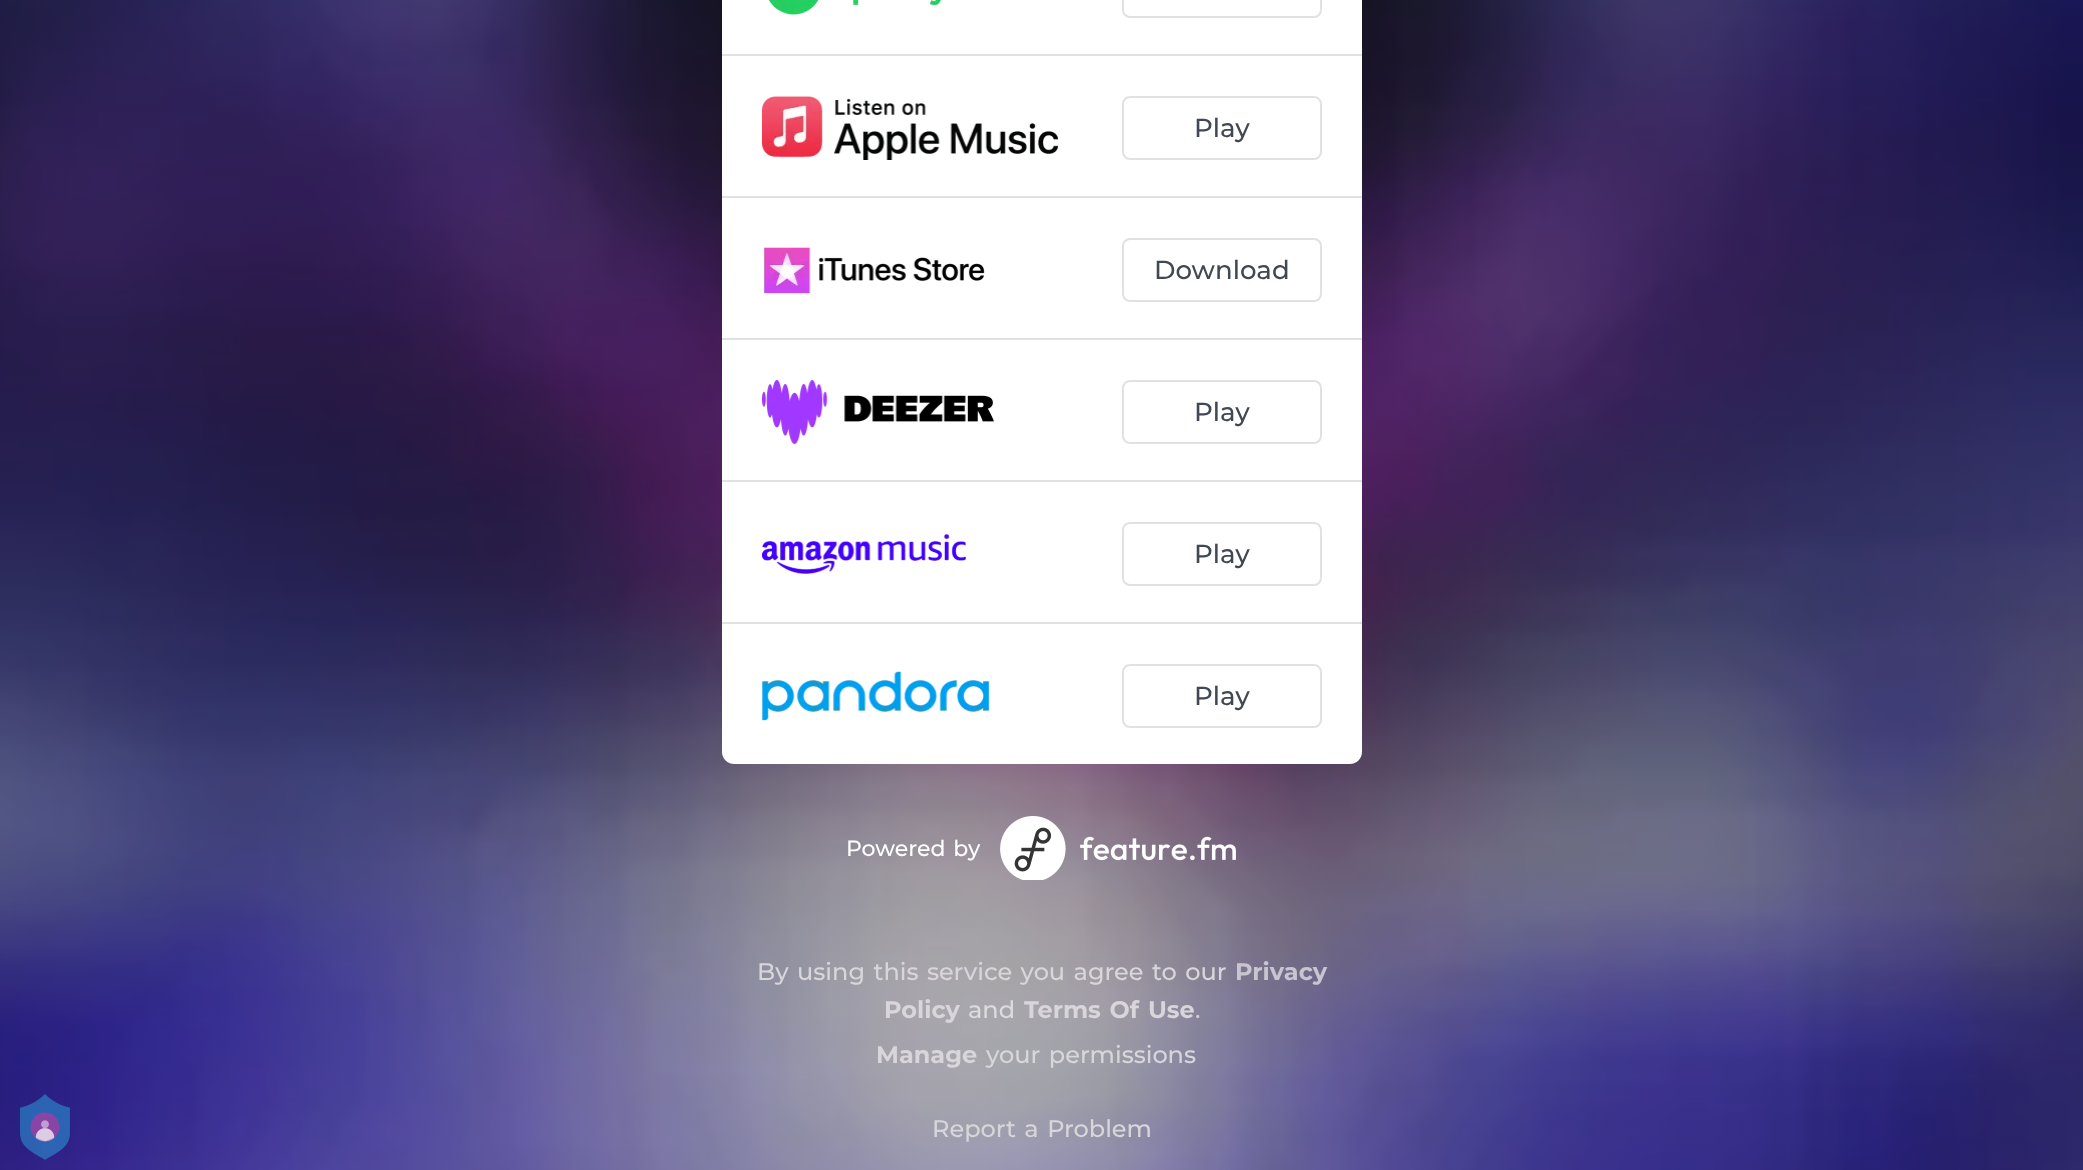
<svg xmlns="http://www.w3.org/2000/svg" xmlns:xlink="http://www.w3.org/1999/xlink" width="2083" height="1170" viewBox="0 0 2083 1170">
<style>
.cls-1{font:500 26px Montserrat;fill:#414754}
.cls-2{font:500 22px Montserrat;fill:#ffffff}
.cls-3{font:500 24px Montserrat;fill:#d8d6da}
.cls-4{font:bold 24px Montserrat;fill:#c8c5d0}
.cls-5{font:bold 24px Montserrat;fill:#d8d6da}
.cls-6{font:500 24px Montserrat;fill:#dcdcde}
.cls-7{font:500 24px Montserrat;fill:#cfcdd7}
</style>
<rect width="100%" height="100%" fill="#ffffff"/>
<image xlink:href="image1.png" x="0" y="0" width="2083" height="1170"/>
<image xlink:href="image0.png" x="20" y="1094" width="50" height="66"/>
<path fill="#ffffff" d="M722-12H1362V752C1362 758.5 1356.5 764 1350 764H734C727.5 764 722 758.5 722 752Z"/>
<rect fill="#e1e1e4" x="722" y="54" width="640" height="2"/>
<image xlink:href="image2.png" x="768" y="0" width="173" height="15"/>
<rect fill="none" stroke="#e1e1e4" stroke-width="2" x="1123" y="-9" width="198" height="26" rx="7"/>
<rect fill="#e1e1e4" x="722" y="196" width="640" height="2"/>
<image xlink:href="image3.png" x="762" y="96" width="296" height="64"/>
<rect fill="none" stroke="#e1e1e4" stroke-width="2" x="1123" y="97" width="198" height="62" rx="7"/>
<rect fill="#e1e1e4" x="722" y="338" width="640" height="2"/>
<image xlink:href="image4.png" x="764" y="247" width="221" height="47"/>
<rect fill="none" stroke="#e1e1e4" stroke-width="2" x="1123" y="239" width="198" height="62" rx="7"/>
<rect fill="#e1e1e4" x="722" y="480" width="640" height="2"/>
<image xlink:href="image5.png" x="762" y="380" width="232" height="64"/>
<rect fill="none" stroke="#e1e1e4" stroke-width="2" x="1123" y="381" width="198" height="62" rx="7"/>
<rect fill="#e1e1e4" x="722" y="622" width="640" height="2"/>
<image xlink:href="image6.png" x="762" y="534" width="204" height="40"/>
<rect fill="none" stroke="#e1e1e4" stroke-width="2" x="1123" y="523" width="198" height="62" rx="7"/>
<image xlink:href="image7.png" x="762" y="671" width="230" height="50"/>
<rect fill="none" stroke="#e1e1e4" stroke-width="2" x="1123" y="665" width="198" height="62" rx="7"/>
<image xlink:href="image8.png" x="1000" y="816" width="236" height="64"/>
<text class="cls-1" x="1194" y="137">Play</text>
<text class="cls-1" x="1154" y="279">Download</text>
<text class="cls-1" x="1194" y="421">Play</text>
<text class="cls-1" x="1194" y="563">Play</text>
<text class="cls-1" x="1194" y="705">Play</text>
<text class="cls-2" x="846" y="856" word-spacing="2">Powered by</text>
<text class="cls-3" x="757" y="980" word-spacing="2">By using this service you agree to our</text>
<text class="cls-4" x="1235" y="980">Privacy</text>
<text class="cls-5" x="884" y="1018">Policy</text>
<text class="cls-6" x="968" y="1018">and</text>
<text class="cls-5" x="1024" y="1018" word-spacing="2">Terms Of Use</text>
<text class="cls-7" x="1195" y="1018">.</text>
<text class="cls-5" x="876" y="1063">Manage</text>
<text class="cls-3" x="986" y="1063" word-spacing="2">your permissions</text>
<text class="cls-3" x="932" y="1137" word-spacing="2">Report a Problem</text>
</svg>
